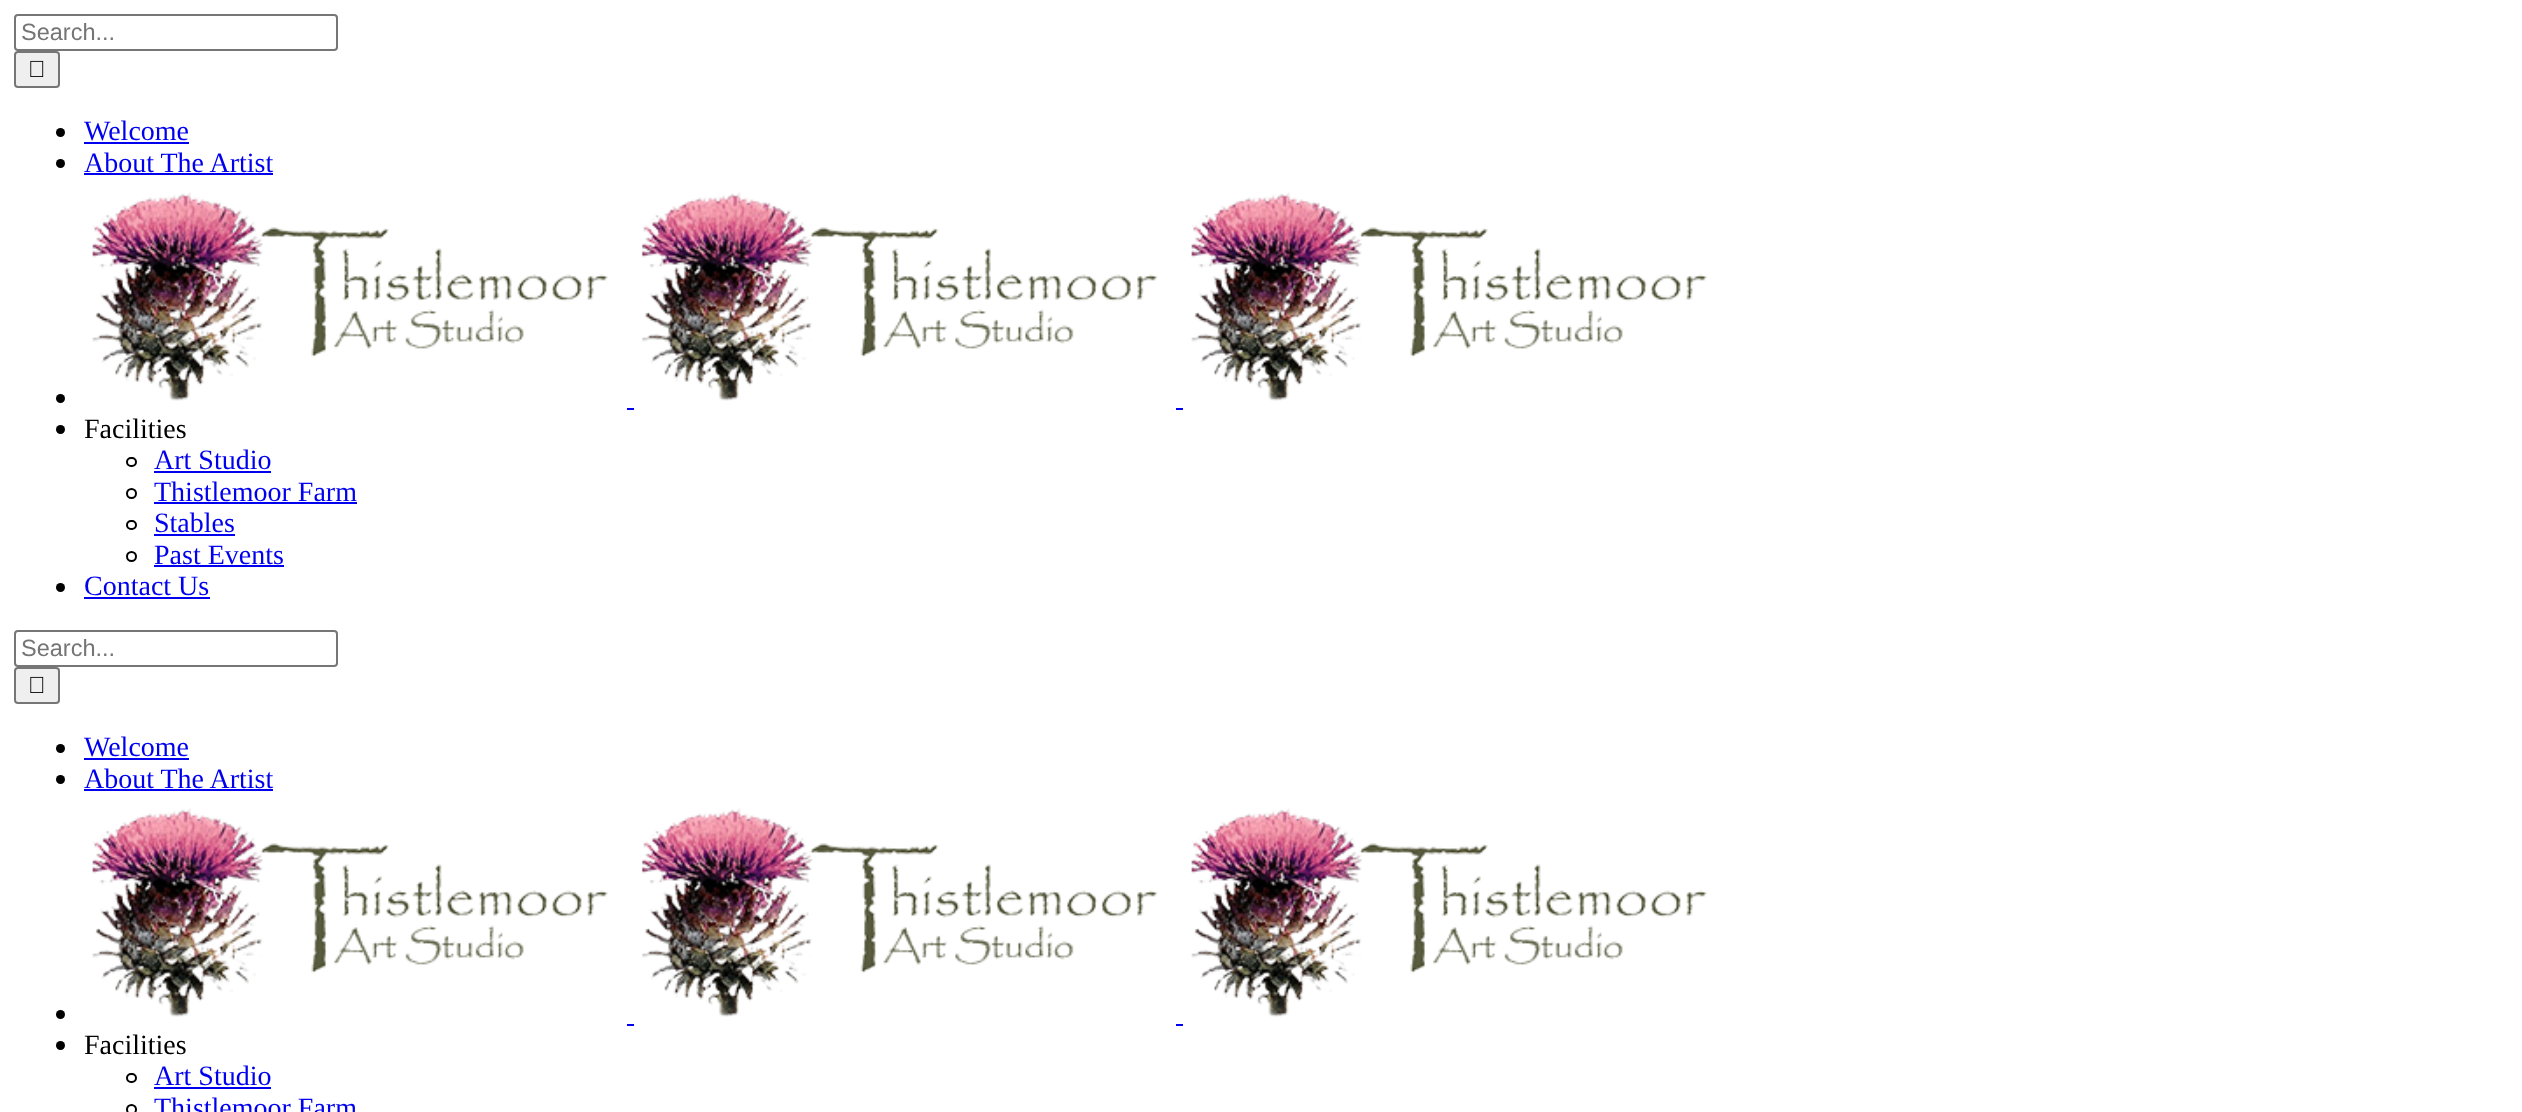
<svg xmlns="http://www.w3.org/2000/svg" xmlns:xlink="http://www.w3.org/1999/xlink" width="2522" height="1112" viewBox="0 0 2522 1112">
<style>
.cls-1{font:23.5px Liberation Sans;fill:#757575}
.cls-2{font:28px Liberation Serif;fill:#0000ee}
.cls-3{font:28px Liberation Serif;fill:#000000}
</style>
<rect width="100%" height="100%" fill="#ffffff"/>
<rect fill="none" stroke="#767676" stroke-width="2" x="15" y="15" width="322" height="35" rx="3"/>
<rect fill="#efefef" stroke="#767676" stroke-width="2" x="15" y="52" width="44" height="35" rx="3"/>
<image xlink:href="image0.png" x="30" y="60" width="14" height="17"/>
<circle fill="#000000" cx="60.5" cy="132.5" r="4.5"/>
<rect fill="#0000ee" x="84" y="142" width="105" height="2"/>
<circle fill="#000000" cx="60.5" cy="163.5" r="4.5"/>
<rect fill="#0000ee" x="84" y="173" width="189" height="2"/>
<circle fill="#000000" cx="60.5" cy="398.5" r="4.5"/>
<image xlink:href="image1.png" x="92" y="192" width="516" height="209"/>
<image xlink:href="image2.png" x="641" y="192" width="517" height="209"/>
<image xlink:href="image1.png" x="1191" y="192" width="516" height="209"/>
<rect fill="#0000ee" x="627" y="408" width="7" height="2"/>
<rect fill="#0000ee" x="1176" y="408" width="7" height="2"/>
<circle fill="#000000" cx="60.5" cy="429.5" r="4.5"/>
<rect fill="none" stroke="#000000" stroke-width="2" x="127" y="458" width="9" height="8" rx="4"/>
<rect fill="#0000ee" x="154" y="471" width="117" height="2"/>
<circle fill="none" stroke="#000000" stroke-width="2" cx="131.5" cy="493.5" r="4.5"/>
<rect fill="#0000ee" x="154" y="502" width="203" height="2"/>
<rect fill="none" stroke="#000000" stroke-width="2" x="127" y="521" width="9" height="8" rx="4"/>
<rect fill="#0000ee" x="154" y="534" width="81" height="2"/>
<circle fill="none" stroke="#000000" stroke-width="2" cx="131.5" cy="556.5" r="4.5"/>
<rect fill="#0000ee" x="154" y="565" width="130" height="2"/>
<circle fill="#000000" cx="60.5" cy="587.5" r="4.5"/>
<rect fill="#0000ee" x="84" y="597" width="126" height="2"/>
<rect fill="none" stroke="#767676" stroke-width="2" x="15" y="631" width="322" height="35" rx="3"/>
<rect fill="#efefef" stroke="#767676" stroke-width="2" x="15" y="668" width="44" height="35" rx="3"/>
<image xlink:href="image0.png" x="30" y="676" width="14" height="17"/>
<circle fill="#000000" cx="60.5" cy="748.5" r="4.5"/>
<rect fill="#0000ee" x="84" y="758" width="105" height="2"/>
<circle fill="#000000" cx="60.5" cy="779.5" r="4.5"/>
<rect fill="#0000ee" x="84" y="789" width="189" height="2"/>
<circle fill="#000000" cx="60.5" cy="1014.5" r="4.5"/>
<image xlink:href="image3.png" x="92" y="808" width="516" height="209"/>
<image xlink:href="image4.png" x="641" y="808" width="517" height="209"/>
<image xlink:href="image3.png" x="1191" y="808" width="516" height="209"/>
<rect fill="#0000ee" x="627" y="1024" width="7" height="2"/>
<rect fill="#0000ee" x="1176" y="1024" width="7" height="2"/>
<circle fill="#000000" cx="60.5" cy="1045.5" r="4.5"/>
<rect fill="none" stroke="#000000" stroke-width="2" x="127" y="1074" width="9" height="8" rx="4"/>
<rect fill="#0000ee" x="154" y="1087" width="117" height="2"/>
<circle fill="none" stroke="#000000" stroke-width="2" cx="131.5" cy="1109.5" r="4.5"/>
<text class="cls-1" x="21" y="40">Search...</text>
<text class="cls-2"><tspan x="84" y="140">Welcome</tspan><tspan x="84" y="172">About The Artist</tspan></text>
<text class="cls-3" x="84" y="438">Facilities</text>
<text class="cls-2"><tspan x="154" y="469">Art Studio</tspan><tspan x="154" y="501">Thistlemoor Farm</tspan><tspan x="154" y="532">Stables</tspan><tspan x="154" y="564">Past Events</tspan></text>
<text class="cls-2" x="84" y="595">Contact Us</text>
<text class="cls-1" x="21" y="656">Search...</text>
<text class="cls-2"><tspan x="84" y="756">Welcome</tspan><tspan x="84" y="788">About The Artist</tspan></text>
<text class="cls-3" x="84" y="1054">Facilities</text>
<text class="cls-2"><tspan x="154" y="1085">Art Studio</tspan><tspan x="154" y="1117">Thistlemoor Farm</tspan></text>
</svg>
